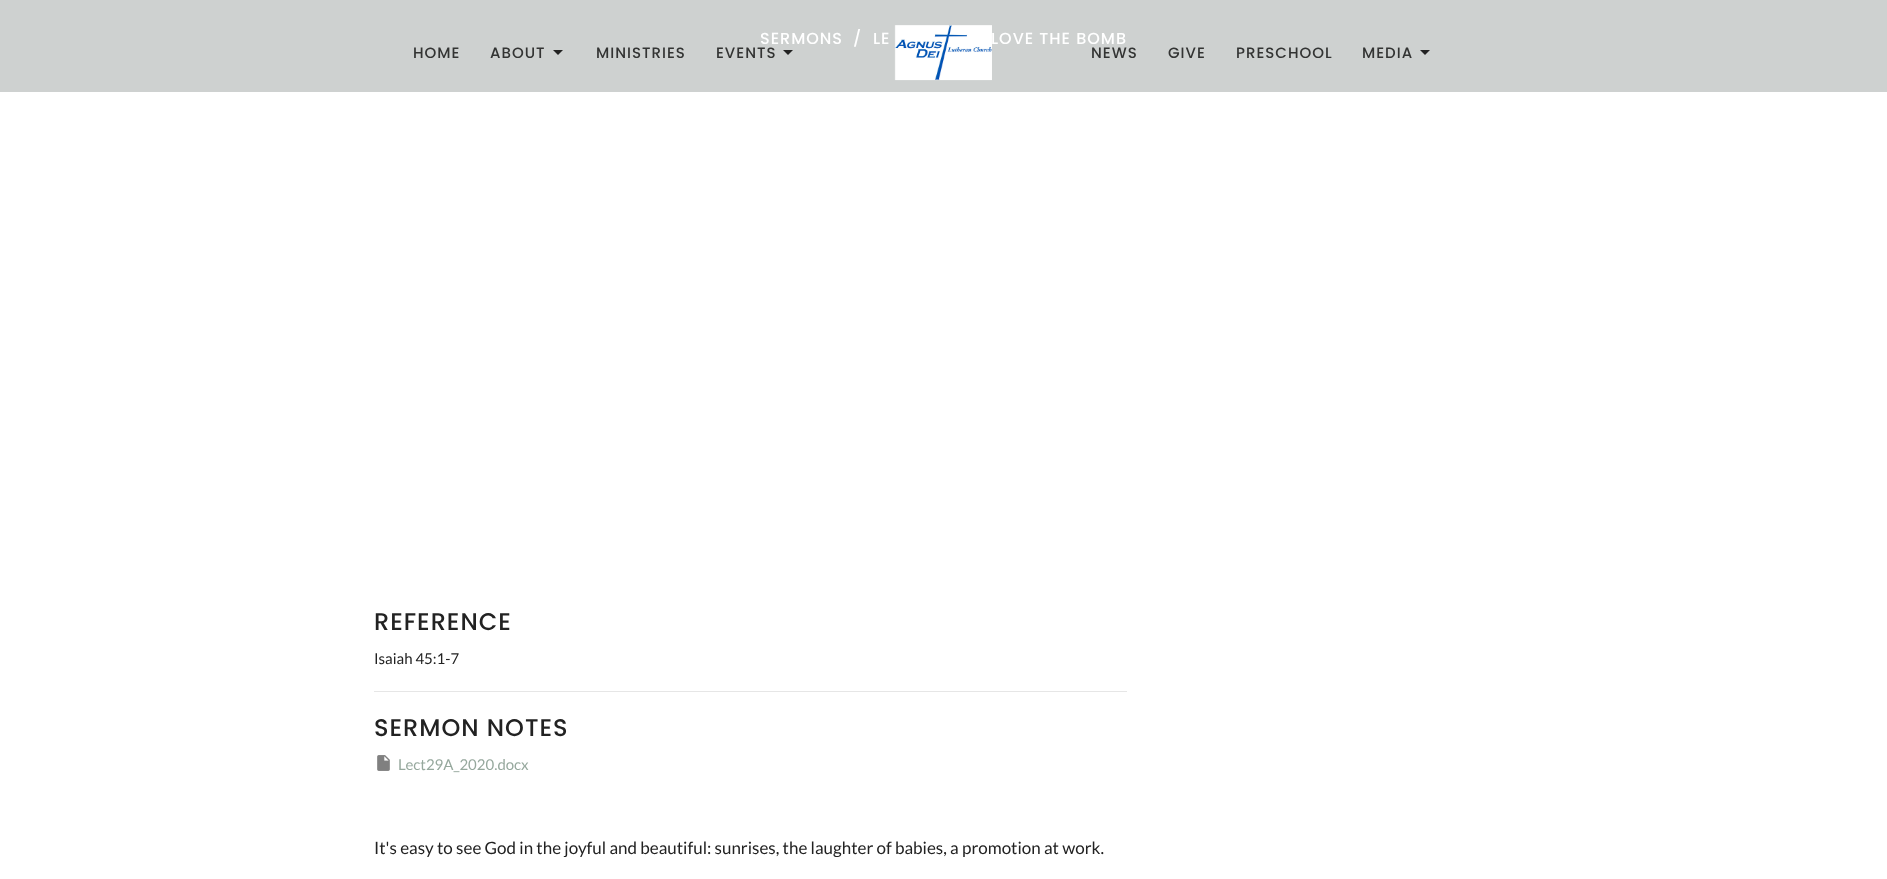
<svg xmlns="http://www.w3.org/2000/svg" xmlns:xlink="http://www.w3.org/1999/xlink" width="1887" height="879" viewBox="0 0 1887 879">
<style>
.cls-1{font:500 16px Poppins;letter-spacing:1px;fill:#ffffff}
.cls-2{font:500 15px Poppins;letter-spacing:1px;fill:#333433}
.cls-3{font:500 24px Poppins;letter-spacing:1px;fill:#222222}
.cls-4{font:15px Lato;fill:#222222}
.cls-5{font:15px Lato;fill:#96a89d}
.cls-6{font:17px Lato;fill:#222222}
</style>
<rect width="100%" height="100%" fill="#ffffff"/>
<rect fill="#ced1d0" x="0" y="0" width="1887" height="92"/>
<path fill="#222222" d="M553 50L558 55L563 50Z"/>
<path fill="#222222" d="M783 50L788 55L793 50Z"/>
<image xlink:href="image0.png" x="894" y="25" width="98" height="56"/>
<path fill="#222222" d="M1420 50L1425 55L1430 50Z"/>
<rect fill="#e6e6e6" x="374" y="691" width="753" height="1"/>
<image xlink:href="image1.png" x="377" y="755" width="13" height="16"/>
<text class="cls-1" x="760" y="44">SERMONS</text>
<text class="cls-1" x="853" y="44">/</text>
<text class="cls-1" x="873" y="44">LE</text>
<text class="cls-1" x="991" y="44">LOVE THE BOMB</text>
<text class="cls-2" x="413" y="58">HOME</text>
<text class="cls-2" x="490" y="58">ABOUT</text>
<text class="cls-2" x="596" y="58">MINISTRIES</text>
<text class="cls-2" x="716" y="58">EVENTS</text>
<text class="cls-2" x="1091" y="58">NEWS</text>
<text class="cls-2" x="1168" y="58">GIVE</text>
<text class="cls-2" x="1236" y="58">PRESCHOOL</text>
<text class="cls-2" x="1362" y="58">MEDIA</text>
<text class="cls-3" x="374" y="630">REFERENCE</text>
<text class="cls-4" x="374" y="664">Isaiah 45:1-7</text>
<text class="cls-3" x="374" y="736">SERMON NOTES</text>
<text class="cls-5" x="398" y="770">Lect29A_2020.docx</text>
<text class="cls-6" x="374" y="854">It's easy to see God in the joyful and beautiful: sunrises, the laughter of babies, a promotion at work.</text>
</svg>
